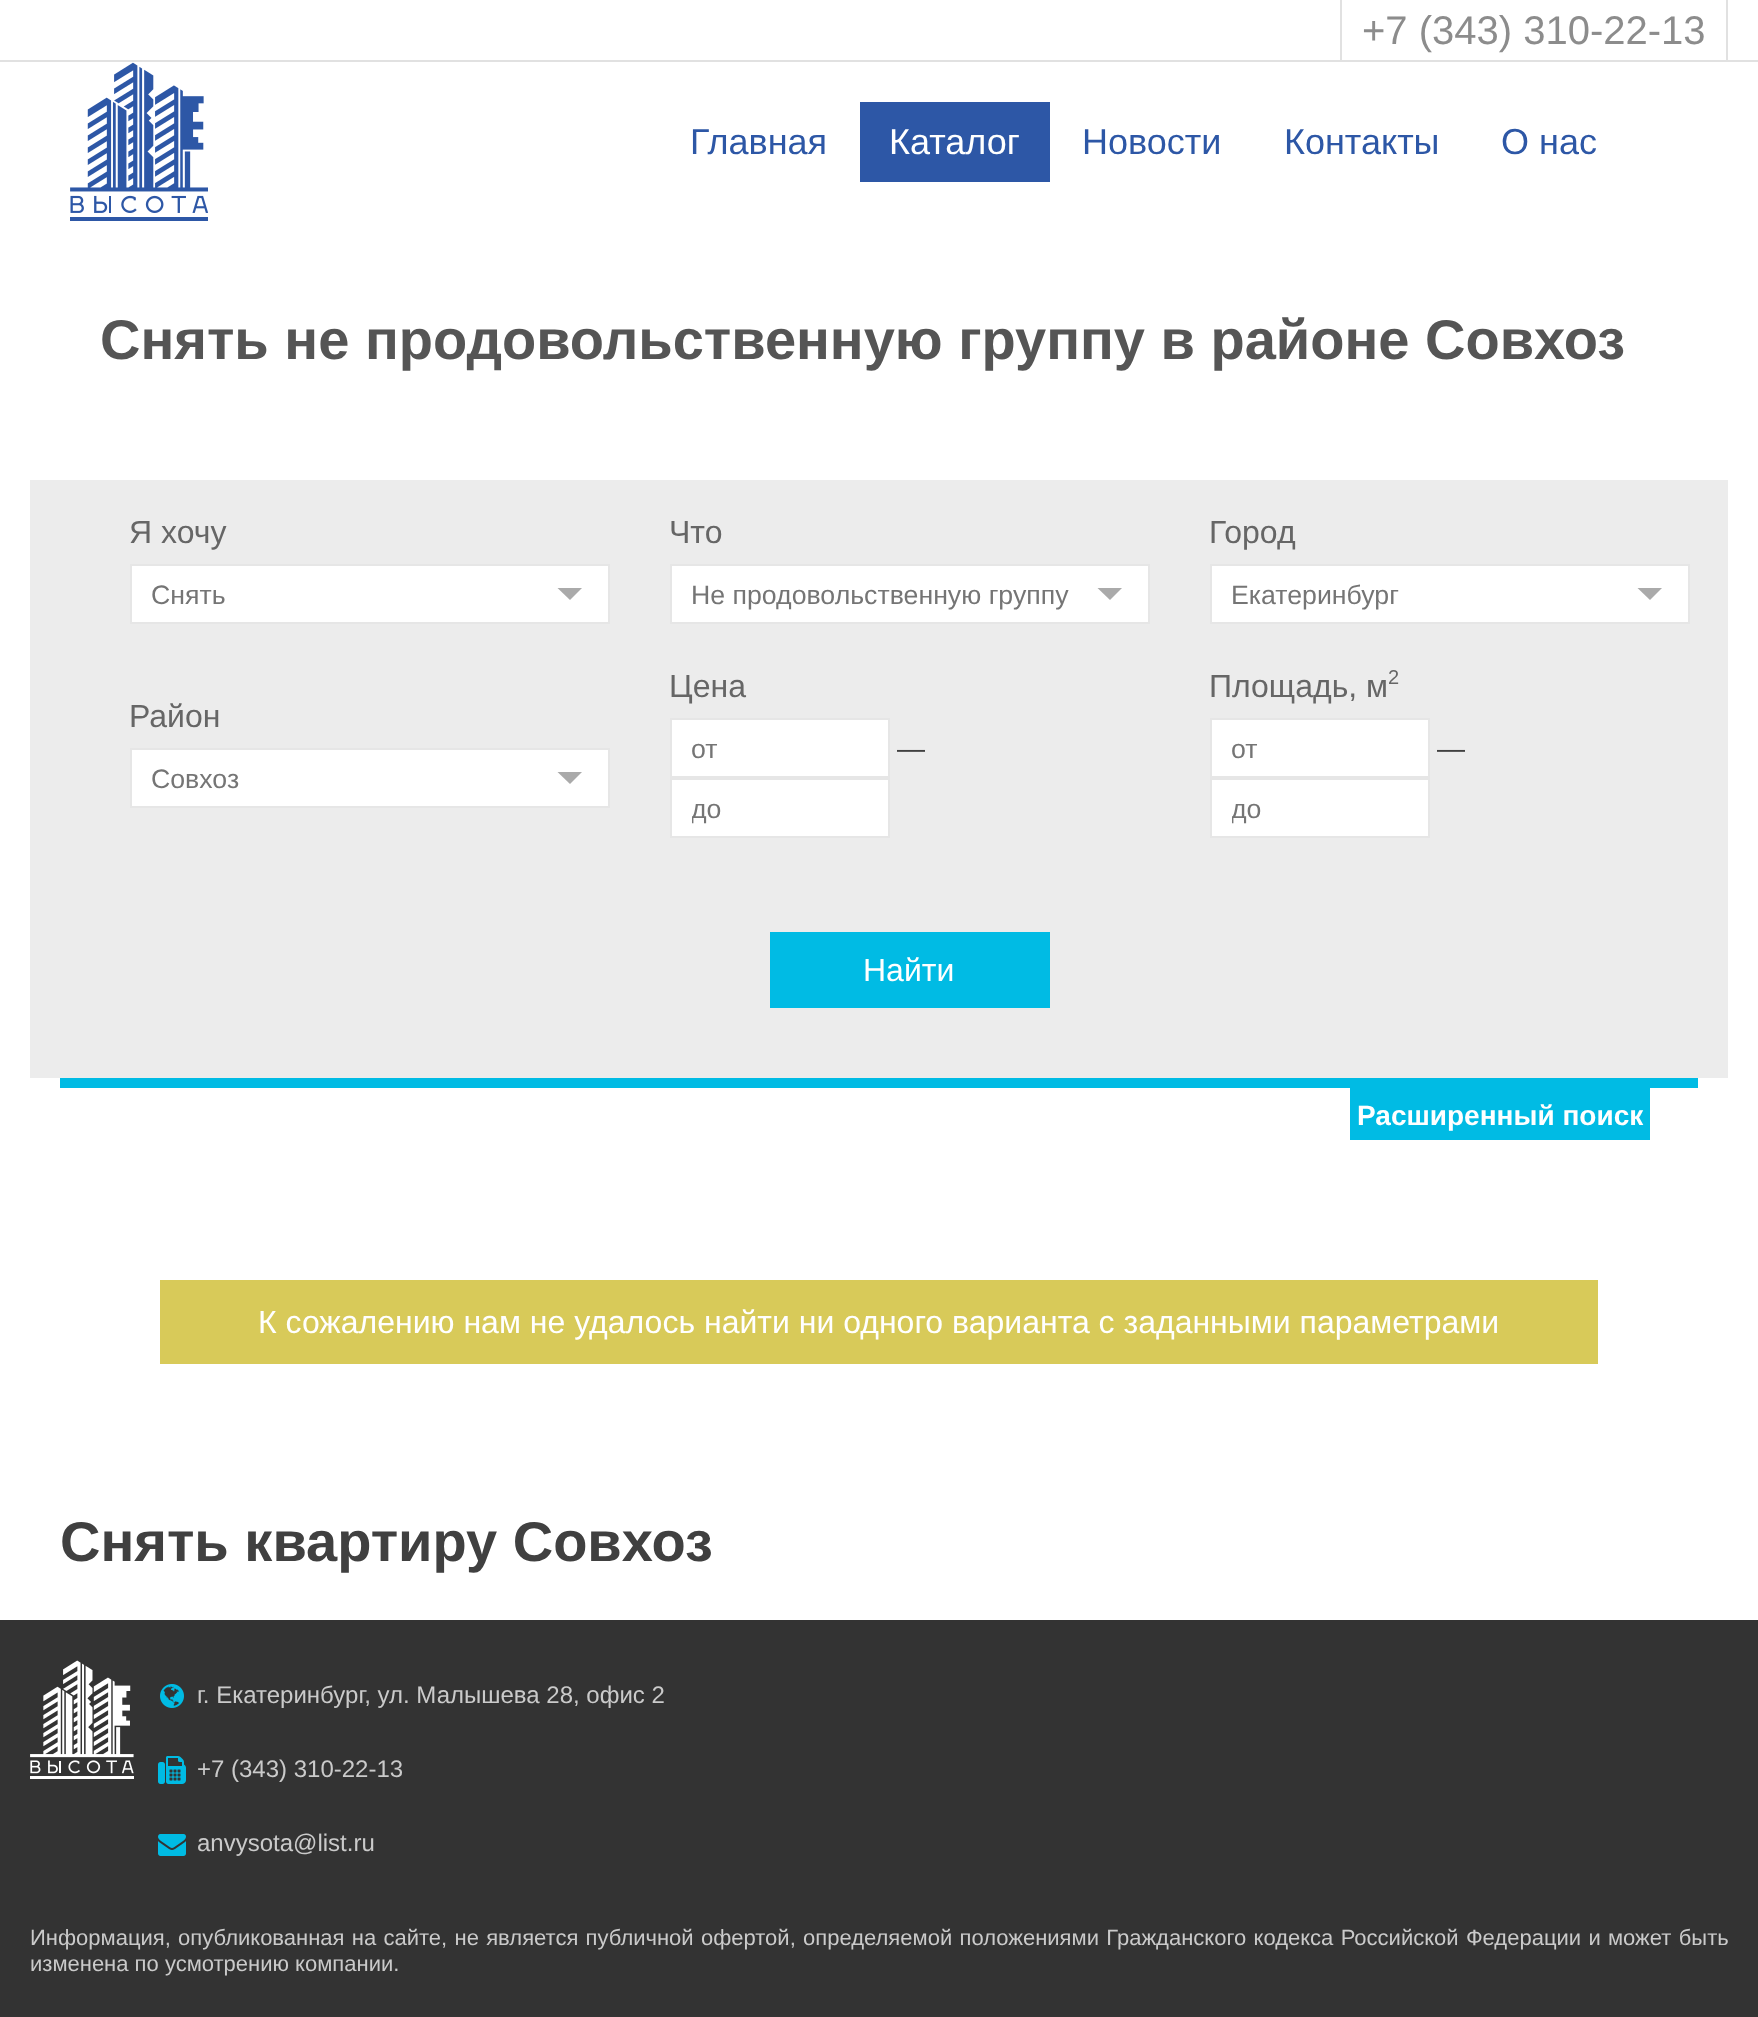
<svg xmlns="http://www.w3.org/2000/svg" xmlns:xlink="http://www.w3.org/1999/xlink" width="1758" height="2017" viewBox="0 0 1758 2017">
<style>
.cls-1{font:40px Liberation Sans;fill:#8c8c8c}
.cls-2{font:36px Liberation Sans;fill:#2d57a6}
.cls-3{font:36px Liberation Sans;fill:#ffffff}
.cls-4{font:bold 56px Liberation Sans;fill:#555555}
.cls-5{font:32px Liberation Sans;fill:#666666}
.cls-6{font:26.7px Liberation Sans;fill:#757575}
.cls-7{font:28px Liberation Sans;fill:#404040}
.cls-8{font:20px Liberation Sans;fill:#666666}
.cls-9{font:32px Liberation Sans;fill:#ffffff}
.cls-10{font:bold 28px Liberation Sans;fill:#ffffff}
.cls-11{font:bold 56px Liberation Sans;fill:#404040}
.cls-12{font:24px Liberation Sans;fill:#cacaca}
.cls-13{font:22px Liberation Sans;fill:#cacaca}
</style>
<defs>
<clipPath id="clip1"><rect x="692" y="794" width="176" height="30"/></clipPath>
<clipPath id="clip2"><rect x="1232" y="794" width="176" height="30"/></clipPath>
</defs>
<rect width="100%" height="100%" fill="#e1e1e1"/>
<rect fill="#ffffff" x="0" y="0" width="1758" height="60"/>
<rect fill="#e1e1e1" x="1340" y="0" width="2" height="60"/>
<rect fill="#e1e1e1" x="1726" y="0" width="2" height="60"/>
<rect fill="#ffffff" x="0" y="62" width="1758" height="1558"/>
<image xlink:href="image0.png" x="70" y="62" width="138" height="159"/>
<rect fill="#2d57a6" x="860" y="102" width="190" height="80"/>
<rect fill="#ececec" x="30" y="480" width="1698" height="598"/>
<rect fill="#ffffff" x="132" y="566" width="476" height="56"/>
<path fill="#aaaaaa" fill-rule="evenodd" d="M557.5 588H582L570 600Z"/>
<rect fill="none" stroke="#e6e6e6" stroke-width="2" x="131" y="565" width="478" height="58"/>
<rect fill="#ffffff" x="672" y="566" width="476" height="56"/>
<path fill="#aaaaaa" fill-rule="evenodd" d="M1097.5 588H1122L1110 600Z"/>
<rect fill="none" stroke="#e6e6e6" stroke-width="2" x="671" y="565" width="478" height="58"/>
<rect fill="#ffffff" x="1212" y="566" width="476" height="56"/>
<path fill="#aaaaaa" fill-rule="evenodd" d="M1637.5 588H1662L1650 600Z"/>
<rect fill="none" stroke="#e6e6e6" stroke-width="2" x="1211" y="565" width="478" height="58"/>
<rect fill="#ffffff" x="132" y="750" width="476" height="56"/>
<path fill="#aaaaaa" fill-rule="evenodd" d="M557.5 772H582L570 784Z"/>
<rect fill="none" stroke="#e6e6e6" stroke-width="2" x="131" y="749" width="478" height="58"/>
<rect fill="#ffffff" stroke="#e6e6e6" stroke-width="2" x="671" y="719" width="218" height="58"/>
<rect fill="#ffffff" stroke="#e6e6e6" stroke-width="2" x="671" y="779" width="218" height="58"/>
<rect fill="#ffffff" stroke="#e6e6e6" stroke-width="2" x="1211" y="719" width="218" height="58"/>
<rect fill="#ffffff" stroke="#e6e6e6" stroke-width="2" x="1211" y="779" width="218" height="58"/>
<rect fill="#00bbe4" x="770" y="932" width="280" height="76"/>
<rect fill="#00bbe4" x="60" y="1078" width="1638" height="10"/>
<rect fill="#00bbe4" x="1350" y="1088" width="300" height="52"/>
<rect fill="#d8ca59" x="160" y="1280" width="1438" height="84"/>
<rect fill="#333333" x="0" y="1620" width="1758" height="397"/>
<image xlink:href="image1.png" x="30" y="1660" width="104" height="119"/>
<image xlink:href="image2.png" x="160" y="1684" width="24" height="24"/>
<image xlink:href="image3.png" x="158" y="1756" width="28" height="28"/>
<image xlink:href="image4.png" x="158" y="1834" width="28" height="22"/>
<text class="cls-1" x="1362" y="44">+7 (343) 310-22-13</text>
<text class="cls-2" x="690" y="154">Главная</text>
<text class="cls-3" x="889" y="154">Каталог</text>
<text class="cls-2" x="1082" y="154">Новости</text>
<text class="cls-2" x="1284" y="154">Контакты</text>
<text class="cls-2" x="1501" y="154">О нас</text>
<text class="cls-4" x="100" y="359">Снять не продовольственную группу в районе Совхоз</text>
<text class="cls-5" x="129" y="543">Я хочу</text>
<text class="cls-6" x="151" y="604">Снять</text>
<text class="cls-5" x="669" y="543">Что</text>
<text class="cls-6" x="691" y="604">Не продовольственную группу</text>
<text class="cls-5" x="1209" y="543">Город</text>
<text class="cls-6" x="1231" y="604">Екатеринбург</text>
<text class="cls-5" x="129" y="727">Район</text>
<text class="cls-6" x="151" y="788">Совхоз</text>
<text class="cls-5" x="669" y="697">Цена</text>
<text class="cls-6" x="691" y="758">от</text>
<text class="cls-7" x="897" y="758">—</text>
<g clip-path="url(#clip1)">
<text class="cls-6" x="691" y="818">до</text>
</g>
<text class="cls-5" x="1209" y="697">Площадь, м</text>
<text class="cls-8" x="1388" y="684">2</text>
<text class="cls-6" x="1231" y="758">от</text>
<text class="cls-7" x="1437" y="758">—</text>
<g clip-path="url(#clip2)">
<text class="cls-6" x="1231" y="818">до</text>
</g>
<text class="cls-9" x="863" y="981">Найти</text>
<text class="cls-10" x="1357" y="1125">Расширенный поиск</text>
<text class="cls-9" x="258" y="1333">К сожалению нам не удалось найти ни одного варианта с заданными параметрами</text>
<text class="cls-11" x="60" y="1561">Снять квартиру Совхоз</text>
<text class="cls-12" x="197" y="1703">г. Екатеринбург, ул. Малышева 28, офис 2</text>
<text class="cls-12" x="197" y="1777">+7 (343) 310-22-13</text>
<text class="cls-12" x="197" y="1851">anvysota@list.ru</text>
<text class="cls-13"><tspan x="30" y="1945" word-spacing="1.2">Информация, опубликованная на сайте, не является публичной офертой, определяемой положениями Гражданского кодекса Российской Федерации и может быть</tspan><tspan x="30" y="1971">изменена по усмотрению компании.</tspan></text>
</svg>
